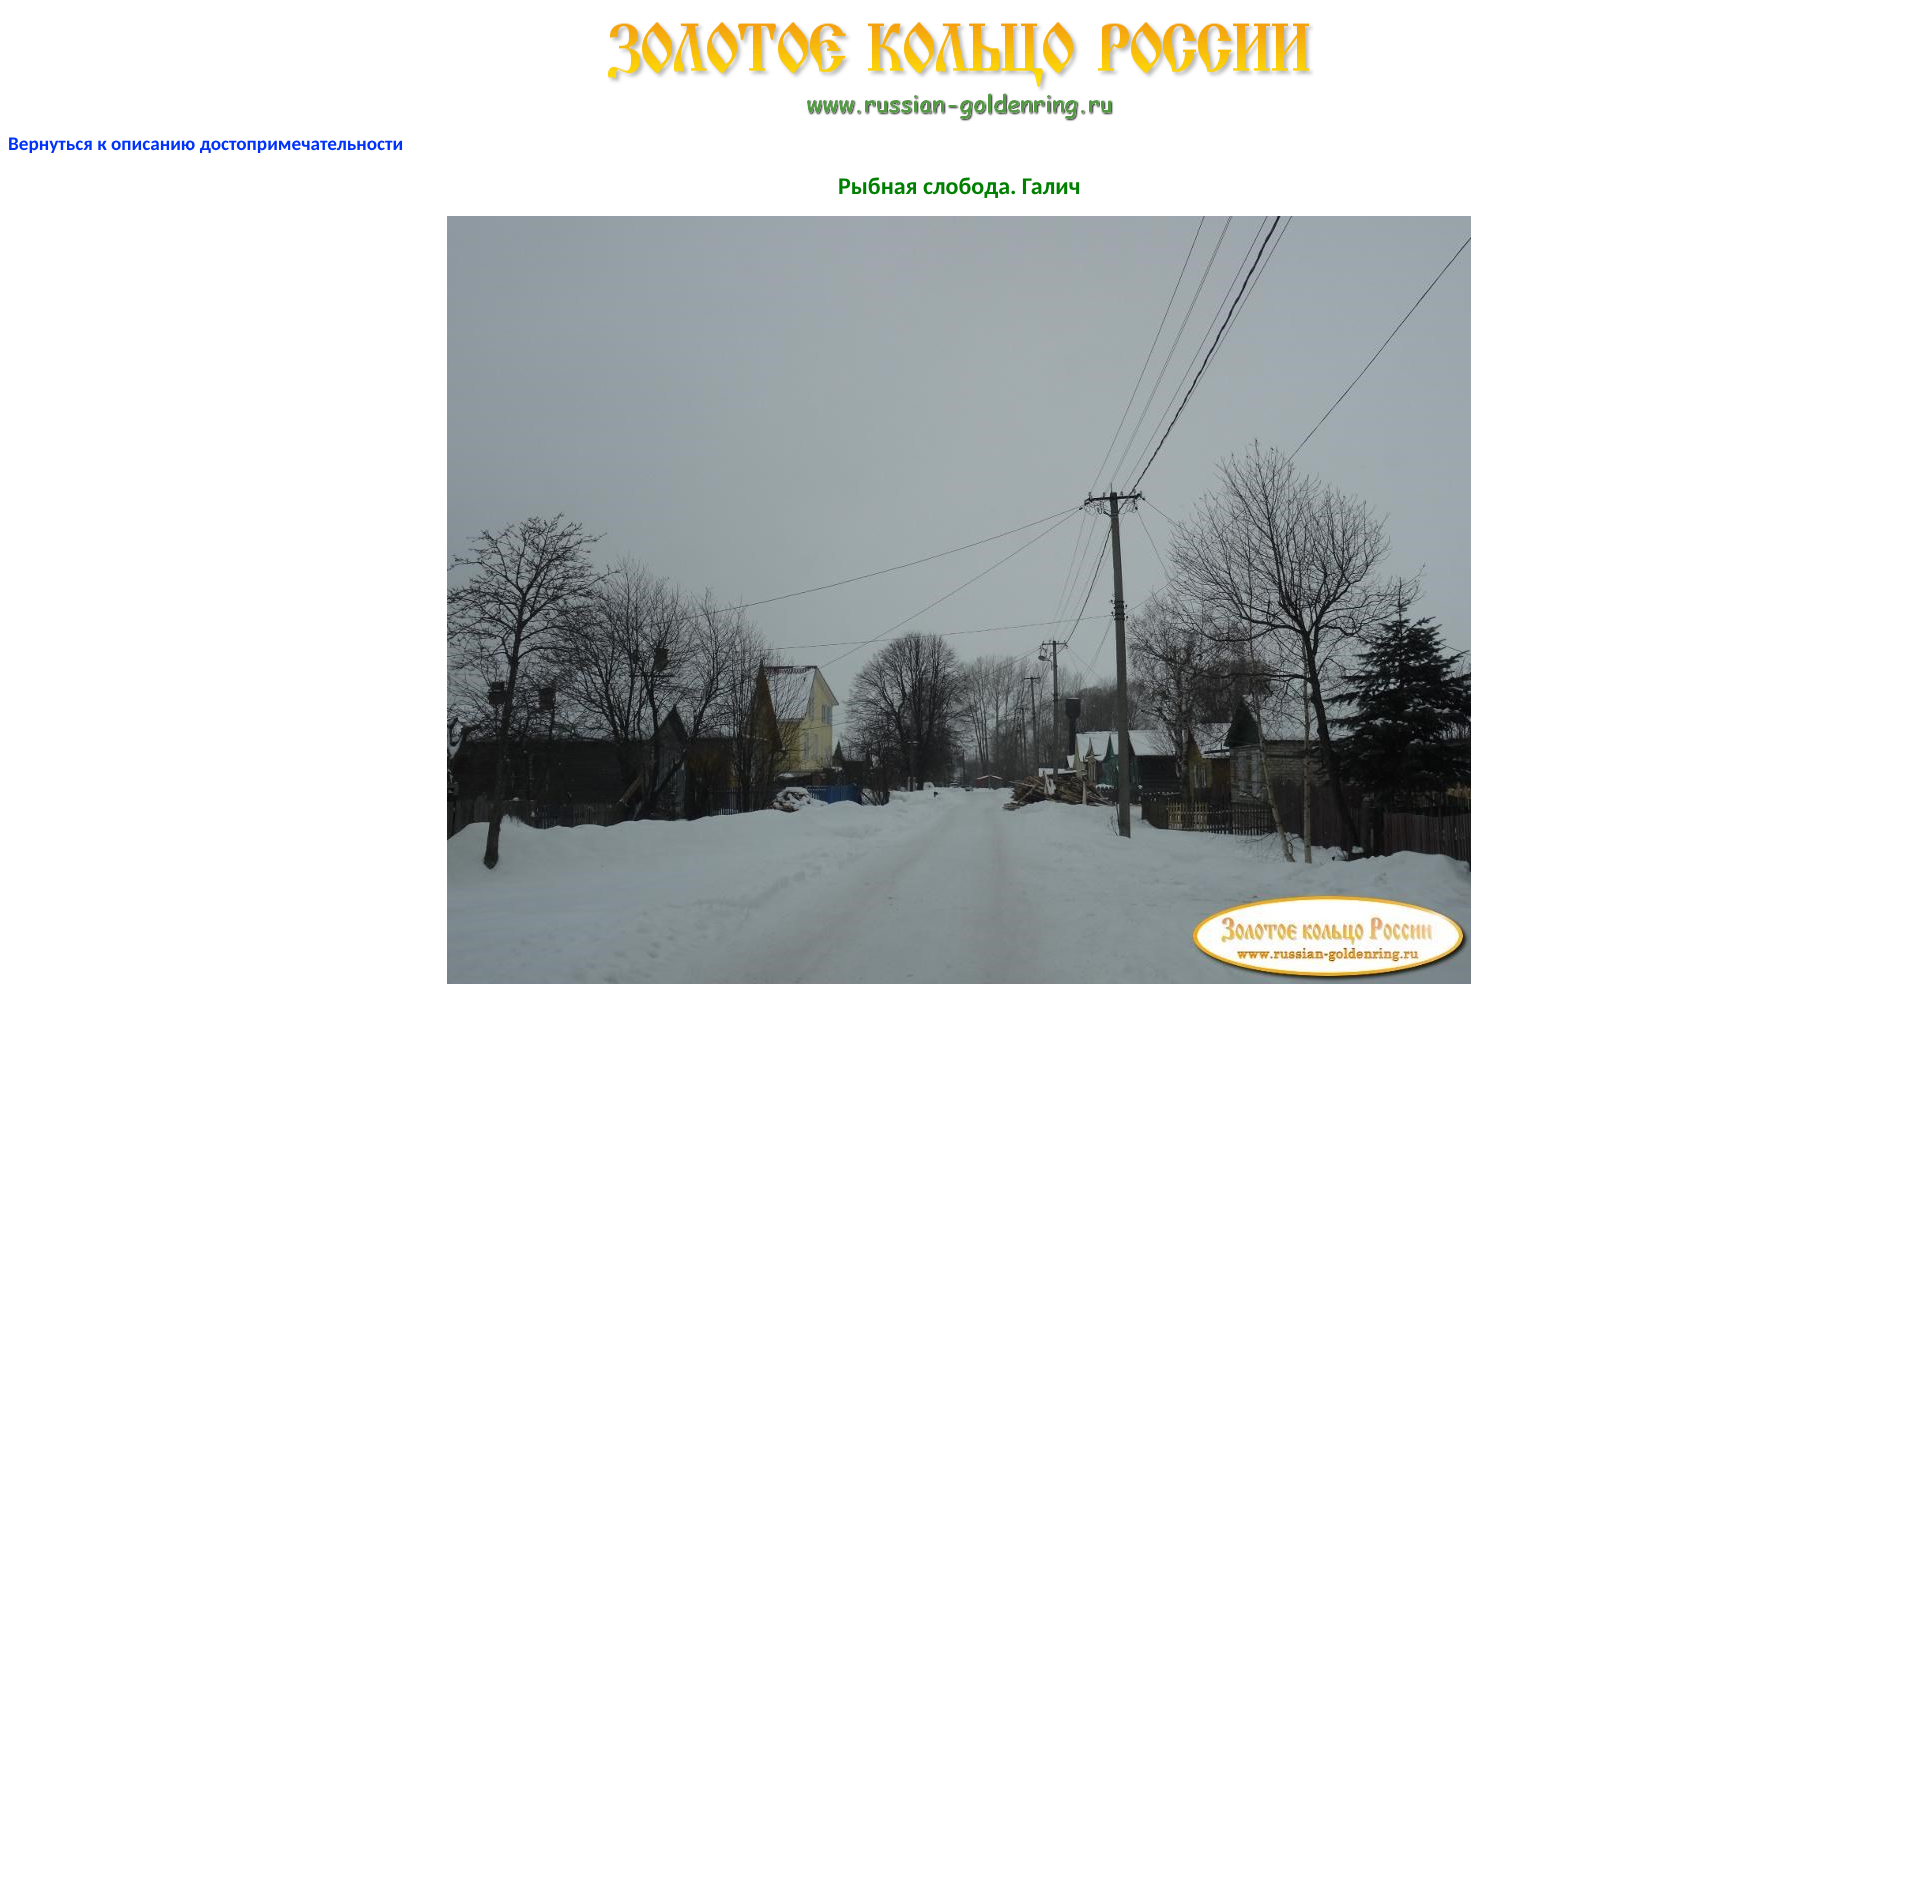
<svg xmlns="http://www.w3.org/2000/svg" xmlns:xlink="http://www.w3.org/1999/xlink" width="1918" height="1879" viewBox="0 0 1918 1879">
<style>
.cls-1{font:bold 19.2px Carlito;fill:#0032f9}
.cls-2{font:bold 24px Carlito;fill:#008000}
</style>
<rect width="100%" height="100%" fill="#ffffff"/>
<image xlink:href="image0.png" x="608" y="22" width="706" height="100"/>
<image xlink:href="image1.png" x="447" y="216" width="1024" height="768"/>
<text class="cls-1" x="8" y="150">Вернуться к описанию достопримечательности</text>
<text class="cls-2" x="838" y="194">Рыбная слобода. Галич</text>
</svg>
